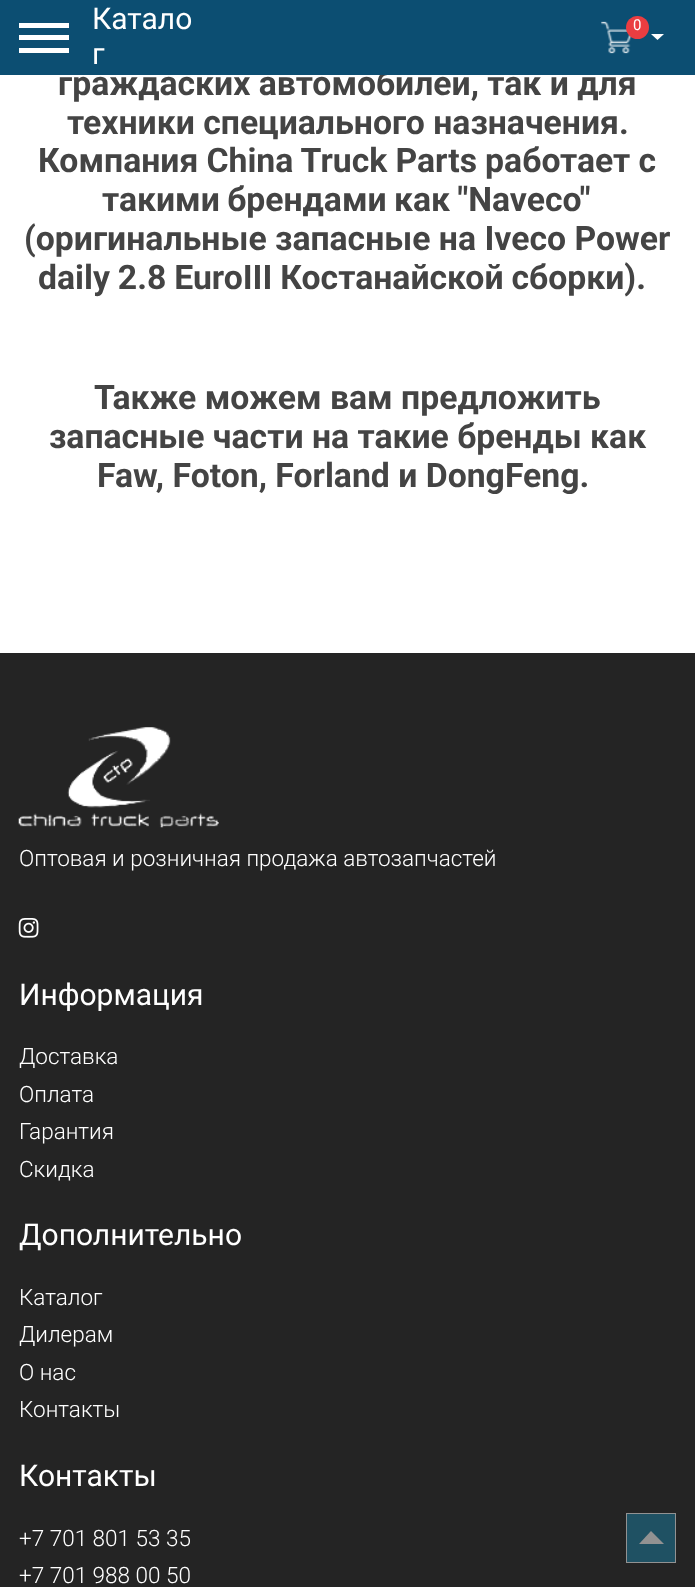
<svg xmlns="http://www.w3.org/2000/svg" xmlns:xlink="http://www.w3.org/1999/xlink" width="695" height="1587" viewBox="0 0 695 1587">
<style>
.cls-1{font:bold 33.75px Roboto;fill:#444444}
.cls-2{font:15px Roboto;fill:#ffffff}
.cls-3{font:30px Roboto;fill:#ffffff}
.cls-4{font:300 22.5px Roboto;fill:#ffffff}
</style>
<rect width="100%" height="100%" fill="#ffffff"/>
<rect fill="#242424" x="0" y="653" width="695" height="934"/>
<image xlink:href="image1.png" x="18" y="727" width="201" height="101"/>
<image xlink:href="image2.png" x="18" y="918" width="21" height="20"/>
<rect fill="#1f5163" stroke="#929292" x="626.5" y="1513.5" width="49" height="49"/>
<path fill="#929292" d="M664 1544H639L651 1531Z"/>
<text class="cls-1" x="58" y="95">граждаских автомобилей, так и для</text>
<rect fill="#0c4e72" x="0" y="0" width="695" height="75"/>
<path fill="#ffffff" d="M651 34H664L657.5 40Z"/>
<image xlink:href="image0.png" x="601" y="21" width="31" height="33"/>
<circle fill="#ea3d41" cx="637.5" cy="27.5" r="11.5"/>
<text class="cls-2" x="633" y="30">0</text>
<rect fill="#ffffff" x="19" y="48" width="50" height="5"/>
<rect fill="#ffffff" x="19" y="35" width="50" height="5"/>
<rect fill="#ffffff" x="19" y="23" width="50" height="5"/>
<text class="cls-3" x="92" y="64">г</text>
<text class="cls-3" x="92" y="29">Катало</text>
<text class="cls-1" x="67" y="134">техники специального назначения.</text>
<text class="cls-1" x="38" y="172" word-spacing="-0.25">Компания China Truck Parts работает с</text>
<text class="cls-1" x="102" y="211" word-spacing="-1">такими брендами как "Naveco"</text>
<text class="cls-1" x="24" y="250">(оригинальные запасные на Iveco Power</text>
<text class="cls-1" x="38" y="289" word-spacing="-0.5">daily 2.8 EuroIII Костанайской сборки).</text>
<text class="cls-1" x="94" y="409">Также можем вам предложить</text>
<text class="cls-1" x="49" y="448">запасные части на такие бренды как</text>
<text class="cls-1" x="97" y="487">Faw, Foton, Forland и DongFeng.</text>
<text class="cls-4" x="19" y="866">Оптовая и розничная продажа автозапчастей</text>
<text class="cls-3" x="19" y="1005">Информация</text>
<text class="cls-4"><tspan x="19" y="1064">Доставка</tspan><tspan x="19" y="1102">Оплата</tspan><tspan x="19" y="1139">Гарантия</tspan><tspan x="19" y="1177">Скидка</tspan></text>
<text class="cls-3" x="19" y="1245">Дополнительно</text>
<text class="cls-4"><tspan x="19" y="1305">Каталог</tspan><tspan x="19" y="1342">Дилерам</tspan><tspan x="19" y="1380">О нас</tspan><tspan x="19" y="1417">Контакты</tspan></text>
<text class="cls-3" x="19" y="1486">Контакты</text>
<text class="cls-4"><tspan x="19" y="1546">+7 701 801 53 35</tspan><tspan x="19" y="1583">+7 701 988 00 50</tspan></text>
</svg>
